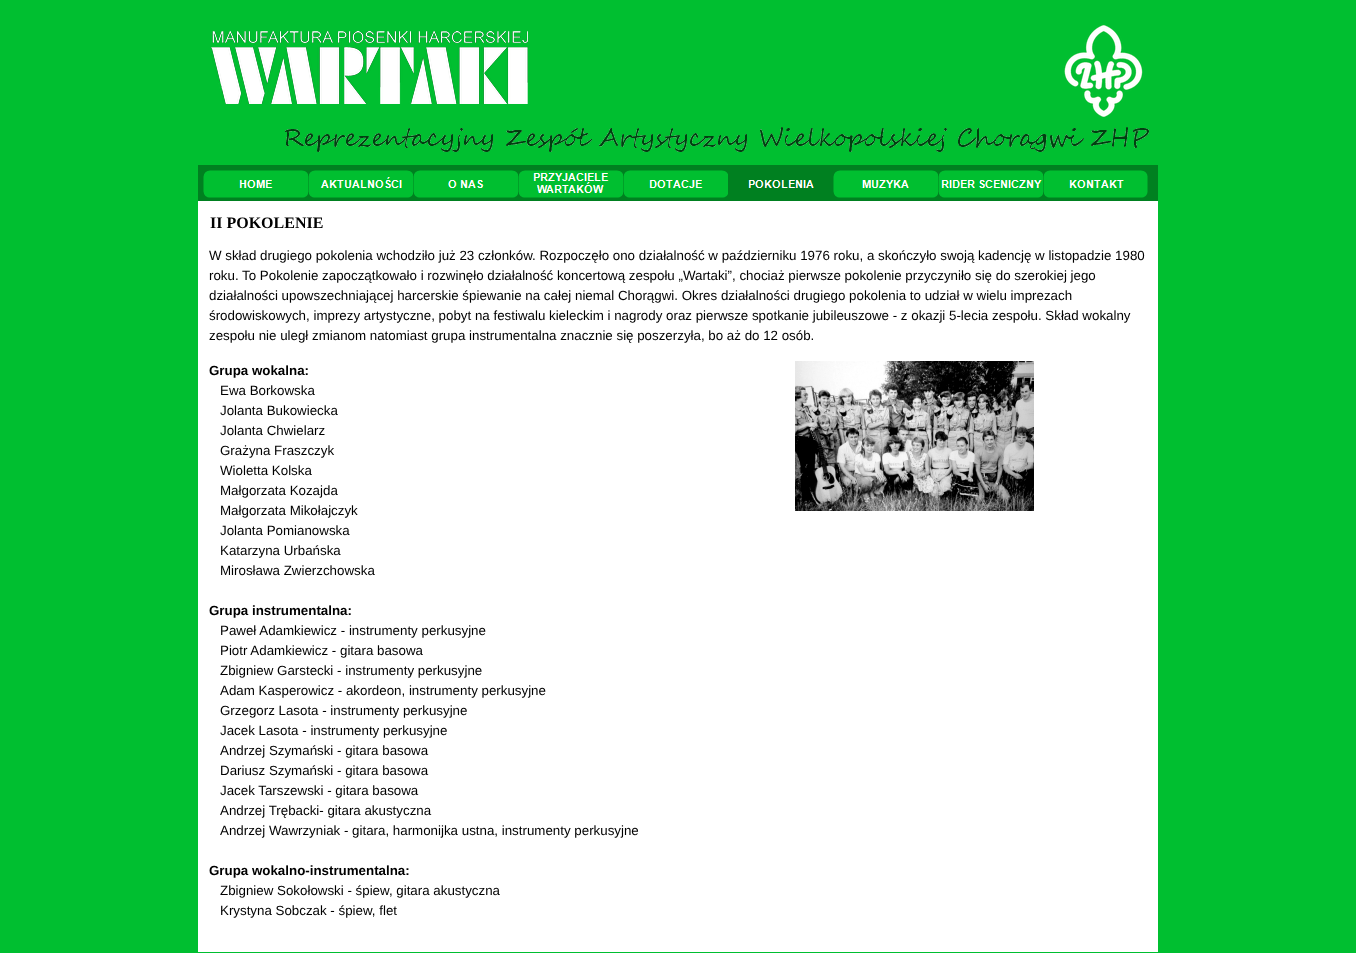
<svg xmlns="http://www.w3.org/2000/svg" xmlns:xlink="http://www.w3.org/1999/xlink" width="1356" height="953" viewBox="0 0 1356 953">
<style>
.cls-1{font:bold 16px Liberation Serif;fill:#000000}
.cls-2{font:13.33px Liberation Sans;fill:#000000}
.cls-3{font:bold 13.33px Liberation Sans;fill:#000000}
</style>
<rect width="100%" height="100%" fill="#00bf30"/>
<image xlink:href="image0.png" x="211" y="25" width="938" height="127"/>
<rect fill="#008020" x="198" y="165" width="960" height="36"/>
<image xlink:href="image1.png" x="203" y="170" width="105" height="28"/>
<image xlink:href="image2.png" x="308" y="170" width="105" height="28"/>
<image xlink:href="image3.png" x="413" y="170" width="105" height="28"/>
<image xlink:href="image4.png" x="518" y="170" width="105" height="28"/>
<image xlink:href="image5.png" x="623" y="170" width="105" height="28"/>
<image xlink:href="image6.png" x="748" y="180" width="66" height="8"/>
<image xlink:href="image7.png" x="833" y="170" width="105" height="28"/>
<image xlink:href="image8.png" x="938" y="170" width="105" height="28"/>
<image xlink:href="image9.png" x="1043" y="170" width="105" height="28"/>
<rect fill="#ffffff" x="198" y="201" width="960" height="751"/>
<image xlink:href="image10.png" x="795" y="361" width="239" height="150"/>
<text class="cls-1" x="210" y="228">II POKOLENIE</text>
<text class="cls-2"><tspan x="209" y="260">W skład drugiego pokolenia wchodziło już 23 członków. Rozpoczęło ono działalność w październiku 1976 roku, a skończyło swoją kadencję w listopadzie 1980</tspan><tspan x="209" y="280">roku. To Pokolenie zapoczątkowało i rozwinęło działalność koncertową zespołu „Wartaki”, chociaż pierwsze pokolenie przyczyniło się do szerokiej jego</tspan><tspan x="209" y="300">działalności upowszechniającej harcerskie śpiewanie na całej niemal Chorągwi. Okres działalności drugiego pokolenia to udział w wielu imprezach</tspan><tspan x="209" y="320">środowiskowych, imprezy artystyczne, pobyt na festiwalu kieleckim i nagrody oraz pierwsze spotkanie jubileuszowe - z okazji 5-lecia zespołu. Skład wokalny</tspan><tspan x="209" y="340">zespołu nie uległ zmianom natomiast grupa instrumentalna znacznie się poszerzyła, bo aż do 12 osób.</tspan></text>
<text class="cls-3" x="209" y="375">Grupa wokalna:</text>
<text class="cls-2"><tspan x="220" y="395">Ewa Borkowska</tspan><tspan x="220" y="415">Jolanta Bukowiecka</tspan><tspan x="220" y="435">Jolanta Chwielarz</tspan><tspan x="220" y="455">Grażyna Fraszczyk</tspan><tspan x="220" y="475">Wioletta Kolska</tspan><tspan x="220" y="495">Małgorzata Kozajda</tspan><tspan x="220" y="515">Małgorzata Mikołajczyk</tspan><tspan x="220" y="535">Jolanta Pomianowska</tspan><tspan x="220" y="555">Katarzyna Urbańska</tspan><tspan x="220" y="575">Mirosława Zwierzchowska</tspan></text>
<text class="cls-3" x="209" y="615">Grupa instrumentalna:</text>
<text class="cls-2"><tspan x="220" y="635">Paweł Adamkiewicz - instrumenty perkusyjne</tspan><tspan x="220" y="655">Piotr Adamkiewicz - gitara basowa</tspan><tspan x="220" y="675">Zbigniew Garstecki - instrumenty perkusyjne</tspan><tspan x="220" y="695">Adam Kasperowicz - akordeon, instrumenty perkusyjne</tspan><tspan x="220" y="715">Grzegorz Lasota - instrumenty perkusyjne</tspan><tspan x="220" y="735">Jacek Lasota - instrumenty perkusyjne</tspan><tspan x="220" y="755">Andrzej Szymański - gitara basowa</tspan><tspan x="220" y="775">Dariusz Szymański - gitara basowa</tspan><tspan x="220" y="795">Jacek Tarszewski - gitara basowa</tspan><tspan x="220" y="815">Andrzej Trębacki- gitara akustyczna</tspan><tspan x="220" y="835">Andrzej Wawrzyniak - gitara, harmonijka ustna, instrumenty perkusyjne</tspan></text>
<text class="cls-3" x="209" y="875">Grupa wokalno-instrumentalna:</text>
<text class="cls-2"><tspan x="220" y="895">Zbigniew Sokołowski - śpiew, gitara akustyczna</tspan><tspan x="220" y="915">Krystyna Sobczak - śpiew, flet</tspan></text>
</svg>
